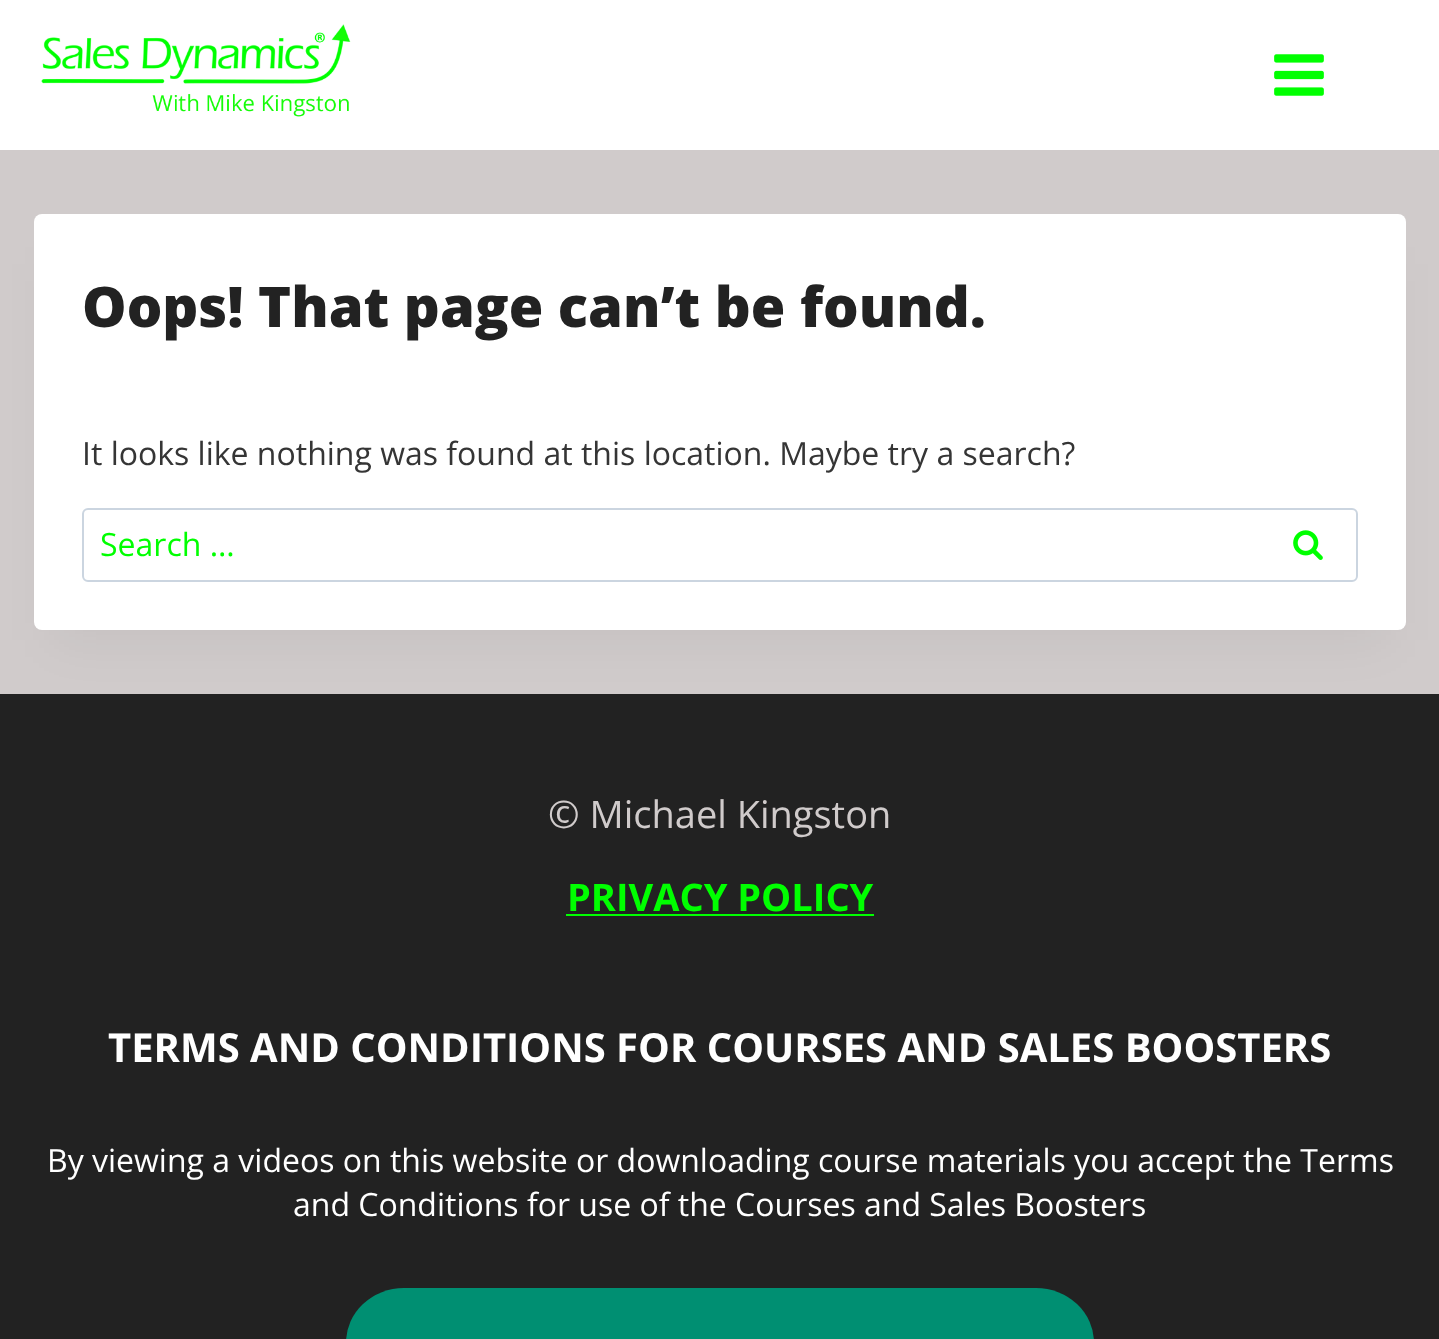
<svg xmlns="http://www.w3.org/2000/svg" xmlns:xlink="http://www.w3.org/1999/xlink" width="1439" height="1339" viewBox="0 0 1439 1339">
<style>
.cls-1{font:800 56px Open Sans;fill:#222222}
.cls-2{font:32px Open Sans;fill:#353535}
.cls-3{font:32px Open Sans;fill:#00ff00}
.cls-4{font:38px Open Sans;fill:#d0cbcb}
.cls-5{font:bold 38px Open Sans;fill:#00ff00}
.cls-6{font:bold 40px Open Sans;fill:#ffffff}
.cls-7{font:32px Open Sans;fill:#ffffff}
</style>
<rect width="100%" height="100%" fill="#d0cbcb"/>
<rect fill="#ffffff" x="0" y="0" width="1439" height="150"/>
<image xlink:href="image0.png" x="41" y="24" width="310" height="93"/>
<image xlink:href="image1.png" x="1274" y="54" width="50" height="42"/>
<rect fill="#222222" x="0" y="694" width="1439" height="645"/>
<rect fill="#000000" fill-opacity="0.05" filter="blur(25px)" x="54" y="264" width="1332" height="376"/>
<rect fill="#ffffff" x="34" y="214" width="1372" height="416" rx="8"/>
<rect fill="none" stroke="#cbd5e0" stroke-width="2" x="83" y="509" width="1274" height="72" rx="5"/>
<image xlink:href="image2.png" x="1293" y="530" width="30" height="30"/>
<rect fill="#00ff00" x="566" y="914" width="308" height="2"/>
<rect fill="#008f72" x="346" y="1288" width="748" height="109" rx="58"/>
<text class="cls-1" x="82" y="327">Oops! That page can’t be found.</text>
<text class="cls-2" x="82" y="465">It looks like nothing was found at this location. Maybe try a search?</text>
<text class="cls-3" x="100" y="556">Search …</text>
<text class="cls-4" x="548" y="828">© Michael Kingston</text>
<text class="cls-5" x="567" y="911">PRIVACY POLICY</text>
<text class="cls-6" x="108" y="1062">TERMS AND CONDITIONS FOR COURSES AND SALES BOOSTERS</text>
<text class="cls-7" x="47" y="1172">By viewing a videos on this website or downloading course materials you accept the Terms</text>
<text class="cls-7" x="293" y="1216">and Conditions for use of the Courses and Sales Boosters</text>
</svg>
